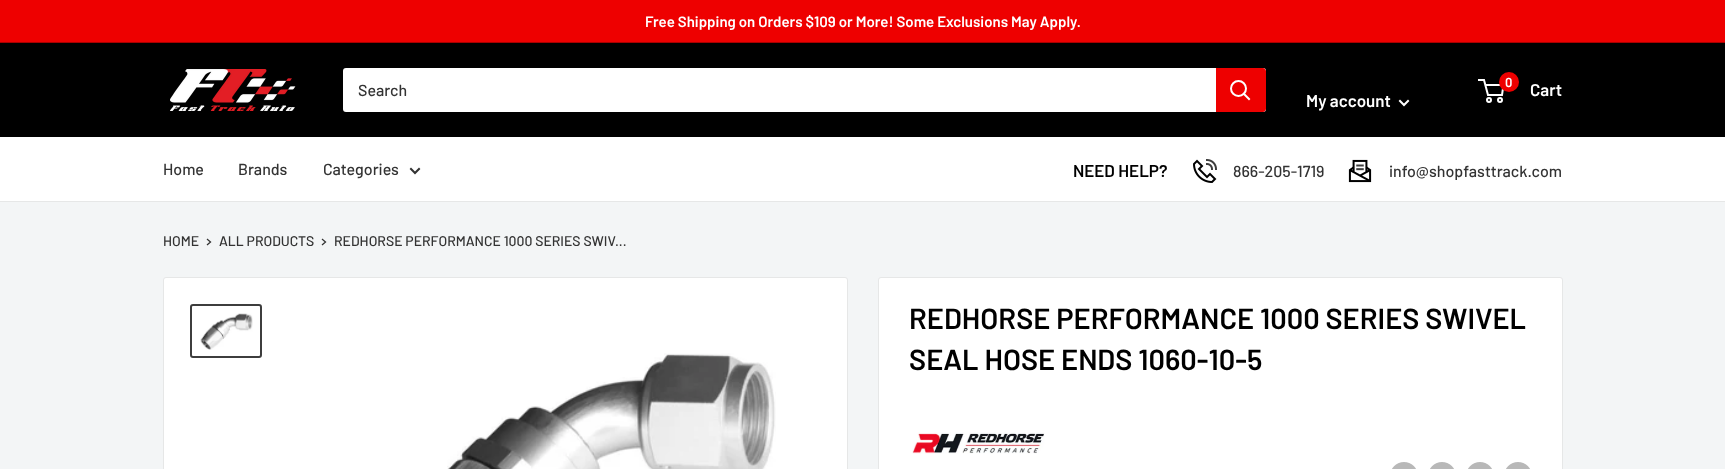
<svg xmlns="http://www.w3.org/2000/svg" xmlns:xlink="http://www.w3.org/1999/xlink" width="1725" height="469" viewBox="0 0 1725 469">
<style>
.cls-1{font:600 15px Barlow;fill:#ffffff}
.cls-2{font:500 16px Barlow;fill:#333333}
.cls-3{font:600 13px Barlow;fill:#ffffff}
.cls-4{font:600 17px Barlow;fill:#ffffff}
.cls-5{font:600 17px Barlow;fill:#000000}
.cls-6{font:500 14px Barlow;fill:#333333}
.cls-7{font:600 29px Barlow;fill:#000000}
</style>
<rect width="100%" height="100%" fill="#f3f5f6"/>
<rect fill="#ee0000" x="0" y="0" width="1725" height="42"/>
<rect fill="#a70000" x="0" y="42" width="1725" height="1"/>
<rect fill="#000000" x="0" y="43" width="1725" height="94"/>
<image xlink:href="image0.png" x="170" y="69" width="126" height="42"/>
<rect fill="#ffffff" x="343" y="68" width="923" height="44" rx="3"/>
<path fill="#ee0000" d="M1216 68H1263C1264.5 68 1266 69.5 1266 71V109C1266 110.5 1264.5 112 1263 112H1216Z"/>
<path fill="none" stroke="#ffffff" stroke-width="2" stroke-linecap="square" d="M1249 99L1244 94"/>
<circle fill="none" stroke="#ffffff" stroke-width="2" cx="1238.5" cy="88.5" r="7.5"/>
<circle fill="none" stroke="#ffffff" stroke-width="2" cx="1489" cy="100" r="2"/>
<circle fill="none" stroke="#ffffff" stroke-width="2" cx="1500" cy="100" r="2"/>
<path fill="none" stroke="#ffffff" stroke-width="2" d="M1485.5 85H1503.5L1502 95H1488L1484 80H1478"/>
<circle fill="#ee0000" cx="1509" cy="82" r="10"/>
<path fill="none" stroke="#ffffff" stroke-width="2" stroke-linecap="square" d="M1408 101L1404 105L1400 101"/>
<rect fill="#ffffff" x="0" y="137" width="1725" height="64"/>
<rect fill="#e6e7e7" x="0" y="201" width="1725" height="1"/>
<path fill="none" stroke="#333333" stroke-width="2" stroke-linecap="square" d="M419 169L415 173L411 169"/>
<image xlink:href="image1.png" x="1193" y="159" width="24" height="24"/>
<image xlink:href="image2.png" x="1348" y="159" width="24" height="24"/>
<path fill="none" stroke="#333333" stroke-width="1.3" stroke-linecap="square" d="M207.5 239.5L210.5 242L207.5 244.5"/>
<path fill="none" stroke="#333333" stroke-width="1.3" stroke-linecap="square" d="M322.5 239.5L325.5 242L322.5 244.5"/>
<rect fill="#ffffff" stroke="#e6e7e7" x="163.5" y="277.5" width="684" height="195" rx="2.5"/>
<rect fill="none" stroke="#3d3d3d" stroke-width="2" x="191" y="305" width="70" height="52" rx="2"/>
<image xlink:href="image3.png" x="200" y="313" width="53" height="37"/>
<image xlink:href="image4.png" x="447" y="353" width="329" height="116"/>
<rect fill="#ffffff" stroke="#e6e7e7" x="878.5" y="277.5" width="684" height="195" rx="2.5"/>
<image xlink:href="image5.png" x="912" y="432" width="133" height="22"/>
<image xlink:href="image6.png" x="1392" y="462" width="24" height="7"/>
<image xlink:href="image6.png" x="1430" y="462" width="24" height="7"/>
<image xlink:href="image6.png" x="1468" y="462" width="24" height="7"/>
<image xlink:href="image6.png" x="1506" y="462" width="24" height="7"/>
<text class="cls-1" x="645" y="27">Free Shipping on Orders $109 or More! Some Exclusions May Apply.</text>
<text class="cls-2" x="358" y="96">Search</text>
<text class="cls-3" x="1505" y="87">0</text>
<text class="cls-4" x="1530" y="96">Cart</text>
<text class="cls-4" x="1306" y="107">My account</text>
<text class="cls-2" x="163" y="175">Home</text>
<text class="cls-2" x="238" y="175">Brands</text>
<text class="cls-2" x="323" y="175">Categories</text>
<text class="cls-5" x="1073" y="177">NEED HELP?</text>
<text class="cls-2" x="1233" y="177">866-205-1719</text>
<text class="cls-2" x="1389" y="177">info@shopfasttrack.com</text>
<text class="cls-6" x="163" y="246">HOME</text>
<text class="cls-6" x="219" y="246">ALL PRODUCTS</text>
<text class="cls-6" x="334" y="246">REDHORSE PERFORMANCE 1000 SERIES SWIV...</text>
<text class="cls-7"><tspan x="909" y="329">REDHORSE PERFORMANCE 1000 SERIES SWIVEL</tspan><tspan x="909" y="370">SEAL HOSE ENDS 1060-10-5</tspan></text>
</svg>
